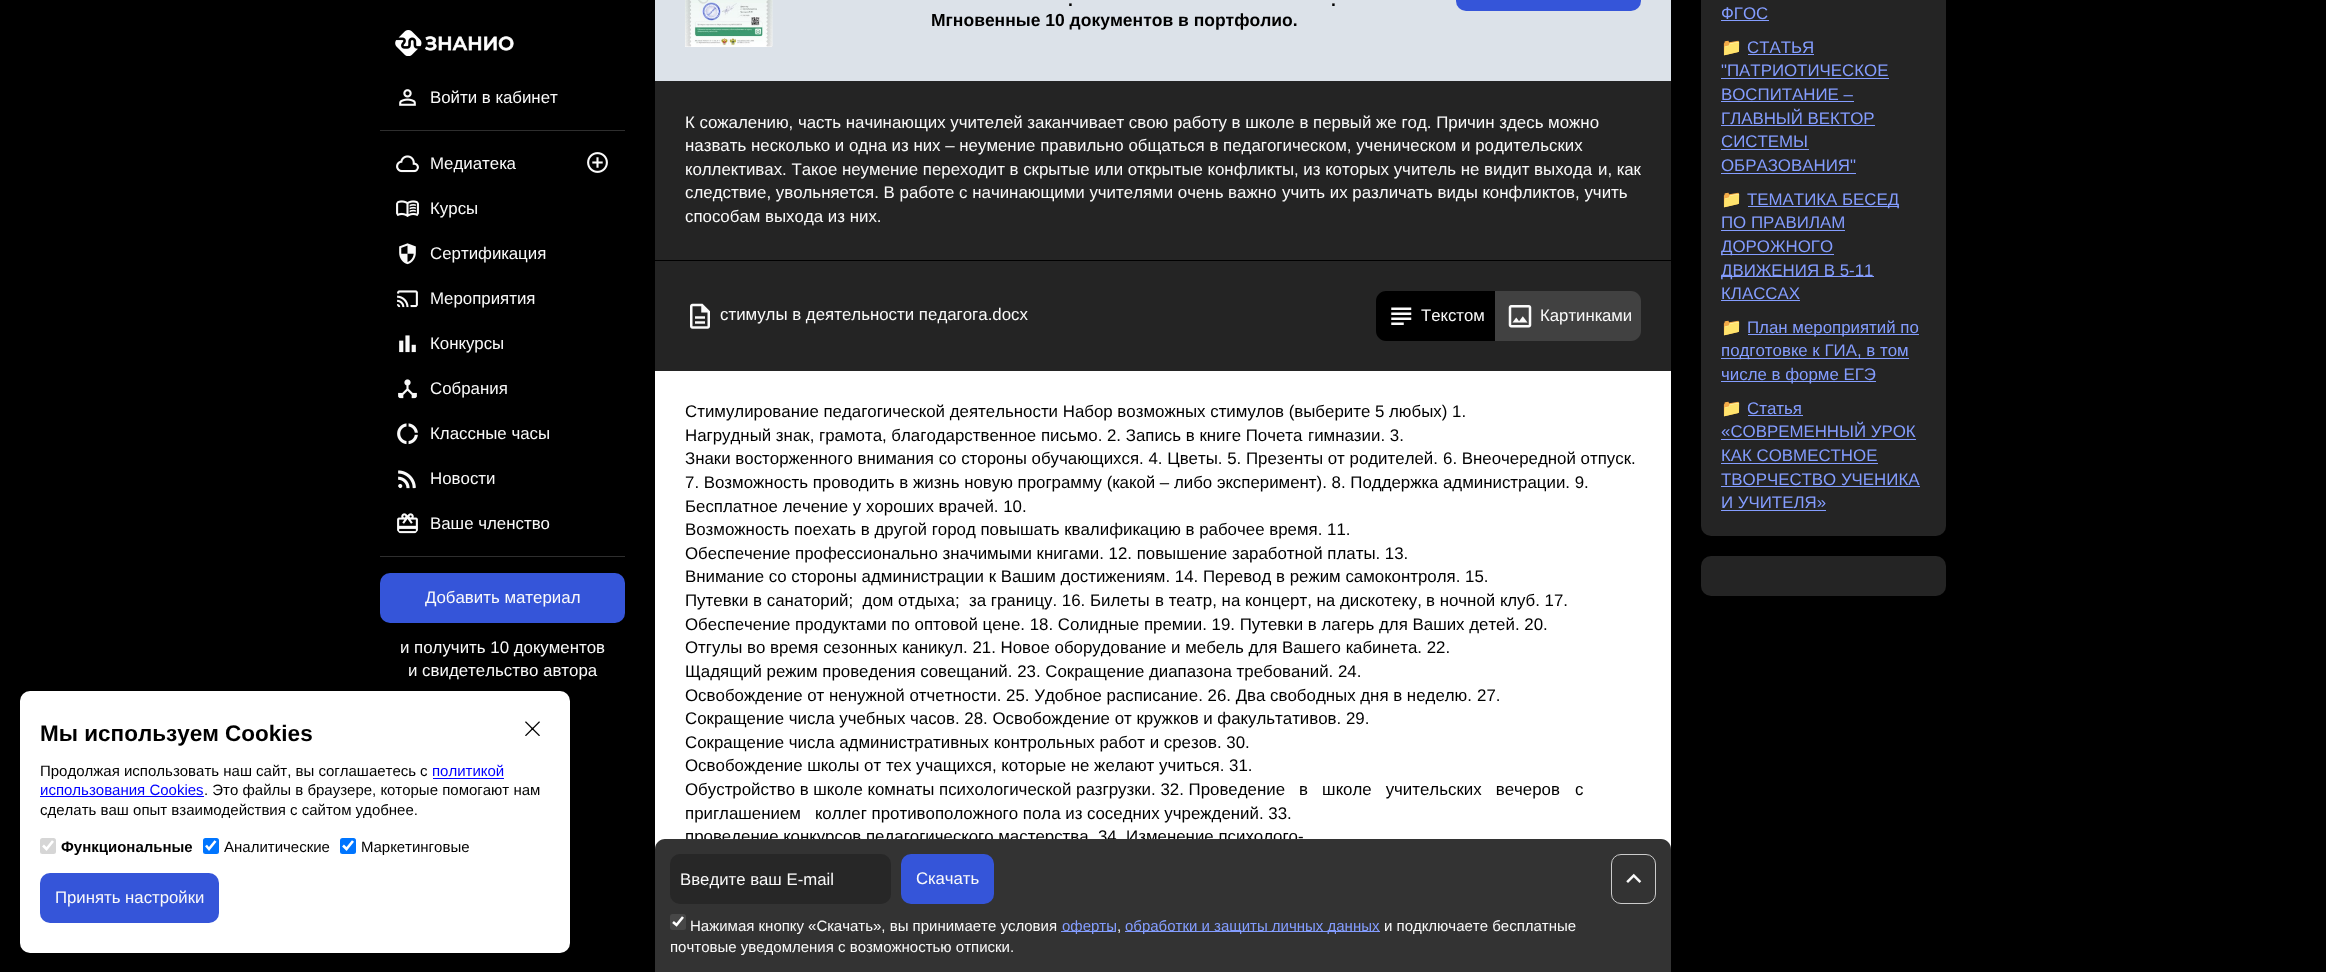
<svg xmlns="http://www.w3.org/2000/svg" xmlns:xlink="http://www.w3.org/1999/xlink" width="2326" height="972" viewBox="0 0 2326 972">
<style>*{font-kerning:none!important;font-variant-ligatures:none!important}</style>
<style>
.cls-1{font:bold 22.5px Liberation Sans;fill:#000000}
.cls-2{font:15px Liberation Sans;fill:#000000}
.cls-3{font:15px Liberation Sans;fill:#0000ff}
.cls-4{font:bold 15px Liberation Sans;fill:#000000}
.cls-5{font:16.75px Liberation Sans;fill:#fafafa}
.cls-6{font:16.88px Liberation Sans;fill:#fafafa}
.cls-7{font:bold 17.5px Liberation Sans;fill:#000000}
.cls-8{font:16.88px Liberation Sans;fill:#000000}
.cls-9{font:15px Liberation Sans;fill:#fafafa}
.cls-10{font:15px Liberation Sans;fill:#849dff}
.cls-11{font:16.88px Liberation Sans;fill:#849dff}
.cls-12{font:16.88px Noto Color Emoji;fill:#fafafa}
</style>
<rect width="100%" height="100%" fill="#000000"/>
<rect fill="#ffffff" x="20" y="691" width="550" height="262" rx="10"/>
<image xlink:href="image0.png" x="525" y="721" width="15" height="15"/>
<rect fill="#0000ff" x="433" y="778" width="71" height="1"/>
<rect fill="#0000ff" x="40" y="796" width="164" height="1"/>
<rect fill="#d6d6d6" x="40" y="838" width="16" height="16" rx="2.5"/>
<path fill="none" stroke="#ffffff" stroke-width="2.6" d="M43 845.5L46.5 849L53 841"/>
<rect fill="#0075ff" x="203" y="838" width="16" height="16" rx="2.5"/>
<path fill="none" stroke="#ffffff" stroke-width="2.6" d="M206 845.5L209 849L215.5 841"/>
<rect fill="#0075ff" x="340" y="838" width="16" height="16" rx="2.5"/>
<path fill="none" stroke="#ffffff" stroke-width="2.6" d="M343 845.5L346.5 849L353 841"/>
<rect fill="#3555d9" x="40" y="873" width="179" height="50" rx="10"/>
<image xlink:href="image1.png" x="395" y="30" width="119" height="26"/>
<image xlink:href="image2.png" x="399" y="89" width="17" height="17"/>
<rect fill="#2e2e2e" x="380" y="130" width="245" height="1"/>
<image xlink:href="image3.png" x="396" y="155" width="23" height="18"/>
<image xlink:href="image4.png" x="587" y="152" width="21" height="21"/>
<image xlink:href="image5.png" x="396" y="200" width="23" height="17"/>
<image xlink:href="image6.png" x="399" y="243" width="17" height="22"/>
<image xlink:href="image7.png" x="397" y="290" width="21" height="18"/>
<image xlink:href="image8.png" x="399" y="335" width="17" height="18"/>
<image xlink:href="image9.png" x="398" y="379" width="19" height="20"/>
<image xlink:href="image10.png" x="397" y="423" width="21" height="22"/>
<image xlink:href="image11.png" x="398" y="470" width="18" height="19"/>
<image xlink:href="image12.png" x="397" y="513" width="21" height="21"/>
<rect fill="#2e2e2e" x="380" y="556" width="245" height="1"/>
<rect fill="#3555d9" x="380" y="573" width="245" height="50" rx="10"/>
<rect fill="#242424" x="655" y="81" width="1016" height="290"/>
<rect fill="#dce2e9" x="655" y="0" width="1016" height="81"/>
<image xlink:href="image13.png" x="685" y="0" width="88" height="47"/>
<rect fill="#3555d9" x="1456" y="-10" width="185" height="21" rx="10"/>
<rect fill="#000000" x="655" y="260" width="1016" height="1"/>
<image xlink:href="image14.png" x="690" y="303" width="20" height="26"/>
<path fill="#000000" d="M1386 291H1495V341H1386C1380.5 341 1376 336.5 1376 331V301C1376 295.5 1380.5 291 1386 291Z"/>
<image xlink:href="image15.png" x="1391" y="307" width="21" height="18"/>
<path fill="#414141" d="M1495 291H1631C1636.5 291 1641 295.5 1641 301V331C1641 336.5 1636.5 341 1631 341H1495Z"/>
<image xlink:href="image16.png" x="1508" y="305" width="24" height="23"/>
<rect fill="#ffffff" x="655" y="371" width="1016" height="478"/>
<rect fill="#242424" x="1701" y="-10" width="245" height="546" rx="10"/>
<rect fill="#849dff" x="1721" y="20" width="48" height="1"/>
<rect fill="#849dff" x="1748" y="54" width="66" height="1"/>
<rect fill="#849dff" x="1721" y="78" width="168" height="1"/>
<rect fill="#849dff" x="1721" y="101" width="133" height="1"/>
<rect fill="#849dff" x="1721" y="125" width="154" height="1"/>
<rect fill="#849dff" x="1721" y="149" width="88" height="1"/>
<rect fill="#849dff" x="1721" y="173" width="135" height="1"/>
<rect fill="#849dff" x="1748" y="206" width="151" height="1"/>
<rect fill="#849dff" x="1721" y="230" width="124" height="1"/>
<rect fill="#849dff" x="1721" y="254" width="113" height="1"/>
<rect fill="#849dff" x="1721" y="276" width="153" height="1"/>
<rect fill="#849dff" x="1721" y="300" width="79" height="1"/>
<rect fill="#849dff" x="1748" y="334" width="171" height="1"/>
<rect fill="#849dff" x="1721" y="358" width="188" height="1"/>
<rect fill="#849dff" x="1721" y="381" width="155" height="1"/>
<rect fill="#849dff" x="1748" y="415" width="55" height="1"/>
<rect fill="#849dff" x="1721" y="439" width="195" height="1"/>
<rect fill="#849dff" x="1721" y="463" width="157" height="1"/>
<rect fill="#849dff" x="1721" y="486" width="199" height="1"/>
<rect fill="#849dff" x="1721" y="510" width="105" height="1"/>
<rect fill="#242424" x="1701" y="556" width="245" height="40" rx="10"/>
<text class="cls-1" x="40" y="741">Мы используем Cookies</text>
<text class="cls-2" x="40" y="776">Продолжая использовать наш сайт, вы соглашаетесь</text>
<text class="cls-2" x="420" y="776">с</text>
<text class="cls-3" x="432" y="776">политикой</text>
<text class="cls-3" x="40" y="795">использования Cookies</text>
<text class="cls-2" x="204" y="795">. Это файлы в браузере, которые помогают нам</text>
<text class="cls-2" x="40" y="815">сделать ваш опыт взаимодействия с сайтом удобнее.</text>
<text class="cls-4" x="61" y="852">Функциональные</text>
<text class="cls-2" x="224" y="852">Аналитические</text>
<text class="cls-2" x="361" y="852">Маркетинговые</text>
<text class="cls-5" x="55" y="903">Принять настройки</text>
<text class="cls-6" x="430" y="103">Войти в кабинет</text>
<text class="cls-6" x="430" y="169">Медиатека</text>
<text class="cls-6" x="430" y="214">Курсы</text>
<text class="cls-6" x="430" y="259">Сертификация</text>
<text class="cls-6" x="430" y="304">Мероприятия</text>
<text class="cls-6" x="430" y="349">Конкурсы</text>
<text class="cls-6" x="430" y="394">Собрания</text>
<text class="cls-6" x="430" y="439">Классные часы</text>
<text class="cls-6" x="430" y="484">Новости</text>
<text class="cls-6" x="430" y="529">Ваше членство</text>
<text class="cls-6" x="425" y="603">Добавить материал</text>
<text class="cls-6" x="400" y="653">и получить 10 документов</text>
<text class="cls-6" x="408" y="676">и свидетельство автора</text>
<text class="cls-7" x="1068" y="6">.</text>
<text class="cls-7" x="1331" y="6">.</text>
<text class="cls-7" x="931" y="26">Мгновенные 10 документов в портфолио.</text>
<text class="cls-6"><tspan x="685" y="128">К сожалению, часть начинающих учителей заканчивает свою работу в школе в первый же год. Причин здесь можно</tspan><tspan x="685" y="151">назвать несколько и одна из них – неумение правильно общаться в педагогическом, ученическом и родительских</tspan><tspan x="685" y="175">коллективах. Такое неумение переходит в скрытые или открытые конфликты, из которых учитель не видит выхода</tspan></text>
<text class="cls-6" x="1598" y="175">и, как</text>
<text class="cls-6" x="685" y="198">следствие, увольняется. В работе с начинающими учителями очень важно</text>
<text class="cls-6" x="1282" y="198">учить их различать виды конфликтов, учить</text>
<text class="cls-6" x="685" y="222">способам выхода из них.</text>
<text class="cls-6" x="720" y="320">стимулы в деятельности педагога.docx</text>
<text class="cls-5" x="1421" y="321">Текстом</text>
<text class="cls-5" x="1540" y="321">Картинками</text>
<text class="cls-8"><tspan x="685" y="417">Стимулирование педагогической деятельности Набор возможных стимулов (выберите 5 любых) 1.</tspan><tspan x="685" y="441">Нагрудный знак, грамота, благодарственное письмо. 2. Запись в книге Почета</tspan></text>
<text class="cls-8" x="1308" y="441">гимназии. 3.</text>
<text class="cls-8" x="685" y="464">Знаки восторженного внимания со стороны обучающихся. 4. Цветы. 5. Презенты от родителей.</text>
<text class="cls-8" x="1443" y="464">6. Внеочередной отпуск.</text>
<text class="cls-8" xml:space="preserve"><tspan x="685" y="488">7. Возможность проводить в жизнь новую программу (какой – либо эксперимент). 8. Поддержка администрации. 9.</tspan><tspan x="685" y="512">Бесплатное лечение у хороших врачей. 10.</tspan><tspan x="685" y="535">Возможность поехать в другой город повышать квалификацию в рабочее время. 11.</tspan><tspan x="685" y="559">Обеспечение профессионально значимыми книгами. 12. повышение заработной платы. 13.</tspan><tspan x="685" y="582">Внимание со стороны администрации к Вашим достижениям. 14. Перевод в режим самоконтроля. 15.</tspan><tspan x="685" y="606">Путевки в санаторий;  дом отдыха;  за границу. 16. Билеты</tspan></text>
<text class="cls-8" x="1155" y="606">в театр, на концерт, на дискотеку,</text>
<text class="cls-8" x="1426" y="606">в ночной клуб. 17.</text>
<text class="cls-8"><tspan x="685" y="630">Обеспечение продуктами по оптовой цене. 18. Солидные премии. 19. Путевки в лагерь для Ваших детей. 20.</tspan><tspan x="685" y="653">Отгулы во время сезонных каникул. 21. Новое оборудование и мебель для Вашего кабинета. 22.</tspan><tspan x="685" y="677">Щадящий режим проведения совещаний. 23. Сокращение диапазона требований. 24.</tspan><tspan x="685" y="701">Освобождение от ненужной отчетности. 25. Удобное расписание. 26. Два свободных дня в неделю.</tspan></text>
<text class="cls-8" x="1477" y="701">27.</text>
<text class="cls-8" xml:space="preserve"><tspan x="685" y="724">Сокращение числа учебных часов. 28. Освобождение от кружков и факультативов. 29.</tspan><tspan x="685" y="748">Сокращение числа административных контрольных работ и срезов. 30.</tspan><tspan x="685" y="771">Освобождение школы от тех учащихся, которые не желают учиться. 31.</tspan><tspan x="685" y="795">Обустройство в школе комнаты психологической разгрузки. 32. Проведение   в   школе   учительских   вечеров</tspan></text>
<text class="cls-8" x="1575" y="795">с</text>
<text class="cls-8" xml:space="preserve"><tspan x="685" y="819">приглашением   коллег противоположного пола из соседних учреждений. 33.</tspan><tspan x="685" y="842">проведение конкурсов педагогического мастерства. 34. Изменение психолого-</tspan></text>
<path fill="#333333" d="M665 839H1661C1666.5 839 1671 843.5 1671 849V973H655V849C655 843.5 659.5 839 665 839Z"/>
<rect fill="#272727" x="670" y="854" width="221" height="50" rx="10"/>
<text class="cls-5" x="680" y="885">Введите ваш E-mail</text>
<rect fill="#3555d9" x="901" y="854" width="93" height="50" rx="10"/>
<text class="cls-5" x="916" y="884">Скачать</text>
<rect fill="#474747" x="670" y="914" width="16" height="16" rx="2.5"/>
<path fill="none" stroke="#ffffff" stroke-width="2.6" d="M673 922L676.5 925L683 917"/>
<text class="cls-9" x="690" y="931">Нажимая кнопку «Скачать», вы принимаете условия</text>
<rect fill="#849dff" x="1061" y="931" width="55" height="1"/>
<text class="cls-10" x="1062" y="931">оферты</text>
<text class="cls-9" x="1117" y="931">,</text>
<rect fill="#849dff" x="1125" y="931" width="255" height="1"/>
<text class="cls-10" x="1125" y="931">обработки и защиты личных данных</text>
<text class="cls-9" x="1384" y="931">и подключаете бесплатные</text>
<text class="cls-9" x="670" y="952">почтовые уведомления с возможностью отписки.</text>
<rect fill="none" stroke="#cccccc" x="1611.5" y="854.5" width="44" height="49" rx="9.5"/>
<image xlink:href="image17.png" x="1626" y="873" width="16" height="10"/>
<text class="cls-11" x="1721" y="19">ФГОС</text>
<text class="cls-12" x="1721" y="53">📁</text>
<text class="cls-11" x="1747" y="53">СТАТЬЯ</text>
<text class="cls-11"><tspan x="1721" y="76">"ПАТРИОТИЧЕСКОЕ</tspan><tspan x="1721" y="100">ВОСПИТАНИЕ –</tspan><tspan x="1721" y="124">ГЛАВНЫЙ ВЕКТОР</tspan><tspan x="1721" y="147">СИСТЕМЫ</tspan><tspan x="1721" y="171">ОБРАЗОВАНИЯ"</tspan></text>
<text class="cls-12" x="1721" y="205">📁</text>
<text class="cls-11" x="1747" y="205">ТЕМАТИКА БЕСЕД</text>
<text class="cls-11"><tspan x="1721" y="228">ПО ПРАВИЛАМ</tspan><tspan x="1721" y="252">ДОРОЖНОГО</tspan><tspan x="1721" y="276">ДВИЖЕНИЯ В 5-11</tspan><tspan x="1721" y="299">КЛАССАХ</tspan></text>
<text class="cls-12" x="1721" y="333">📁</text>
<text class="cls-11" x="1747" y="333">План мероприятий по</text>
<text class="cls-11"><tspan x="1721" y="356">подготовке к ГИА, в том</tspan><tspan x="1721" y="380">числе в форме ЕГЭ</tspan></text>
<text class="cls-12" x="1721" y="414">📁</text>
<text class="cls-11" x="1747" y="414">Статья</text>
<text class="cls-11"><tspan x="1721" y="437">«СОВРЕМЕННЫЙ УРОК</tspan><tspan x="1721" y="461">КАК СОВМЕСТНОЕ</tspan><tspan x="1721" y="485">ТВОРЧЕСТВО УЧЕНИКА</tspan><tspan x="1721" y="508">И УЧИТЕЛЯ»</tspan></text>
</svg>
